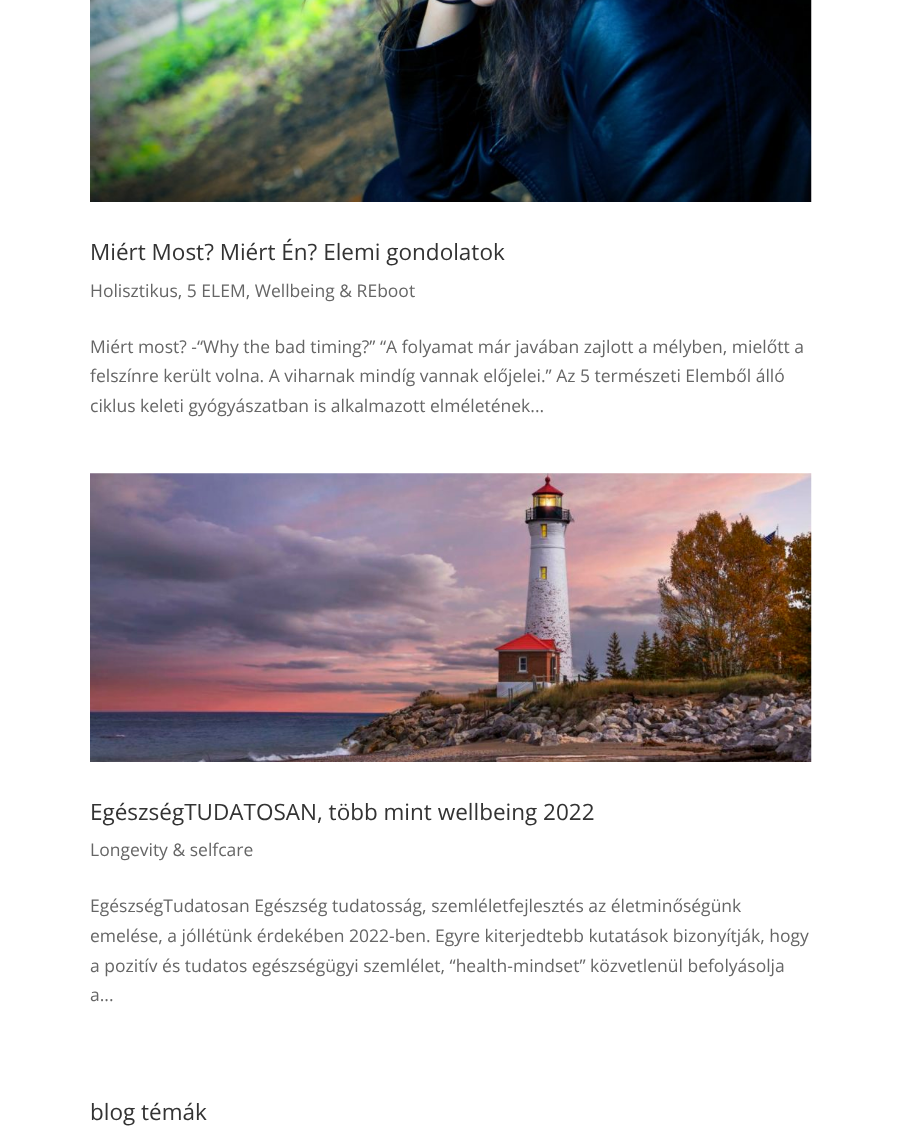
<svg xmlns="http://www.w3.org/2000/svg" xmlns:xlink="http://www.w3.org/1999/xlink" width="901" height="1133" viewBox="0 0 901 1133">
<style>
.cls-1{font:22.5px Open Sans;fill:#333333}
.cls-2{font:17.5px Open Sans;fill:#666666}
</style>
<rect width="100%" height="100%" fill="#ffffff"/>
<image xlink:href="image0.png" x="90" y="0" width="722" height="202"/>
<image xlink:href="image1.png" x="90" y="473" width="722" height="289"/>
<text class="cls-1" x="90" y="260">Miért Most? Miért Én? Elemi gondolatok</text>
<text class="cls-2" x="90" y="297">Holisztikus, 5 ELEM, Wellbeing &amp; REboot</text>
<text class="cls-2"><tspan x="90" y="353">Miért most? -“Why the bad timing?” “A folyamat már javában zajlott a mélyben, mielőtt a</tspan><tspan x="90" y="382">felszínre került volna. A viharnak mindíg vannak előjelei.” Az 5 természeti Elemből álló</tspan><tspan x="90" y="412">ciklus keleti gyógyászatban is alkalmazott elméletének...</tspan></text>
<text class="cls-1" x="90" y="820">EgészségTUDATOSAN, több mint wellbeing 2022</text>
<text class="cls-2" x="90" y="856">Longevity &amp; selfcare</text>
<text class="cls-2"><tspan x="90" y="912">EgészségTudatosan Egészség tudatosság, szemléletfejlesztés az életminőségünk</tspan><tspan x="90" y="942">emelése, a jóllétünk érdekében 2022-ben. Egyre kiterjedtebb kutatások bizonyítják, hogy</tspan><tspan x="90" y="972">a pozitív és tudatos egészségügyi szemlélet, “health-mindset” közvetlenül befolyásolja</tspan><tspan x="90" y="1001">a...</tspan></text>
<text class="cls-1" x="90" y="1120">blog témák</text>
</svg>
